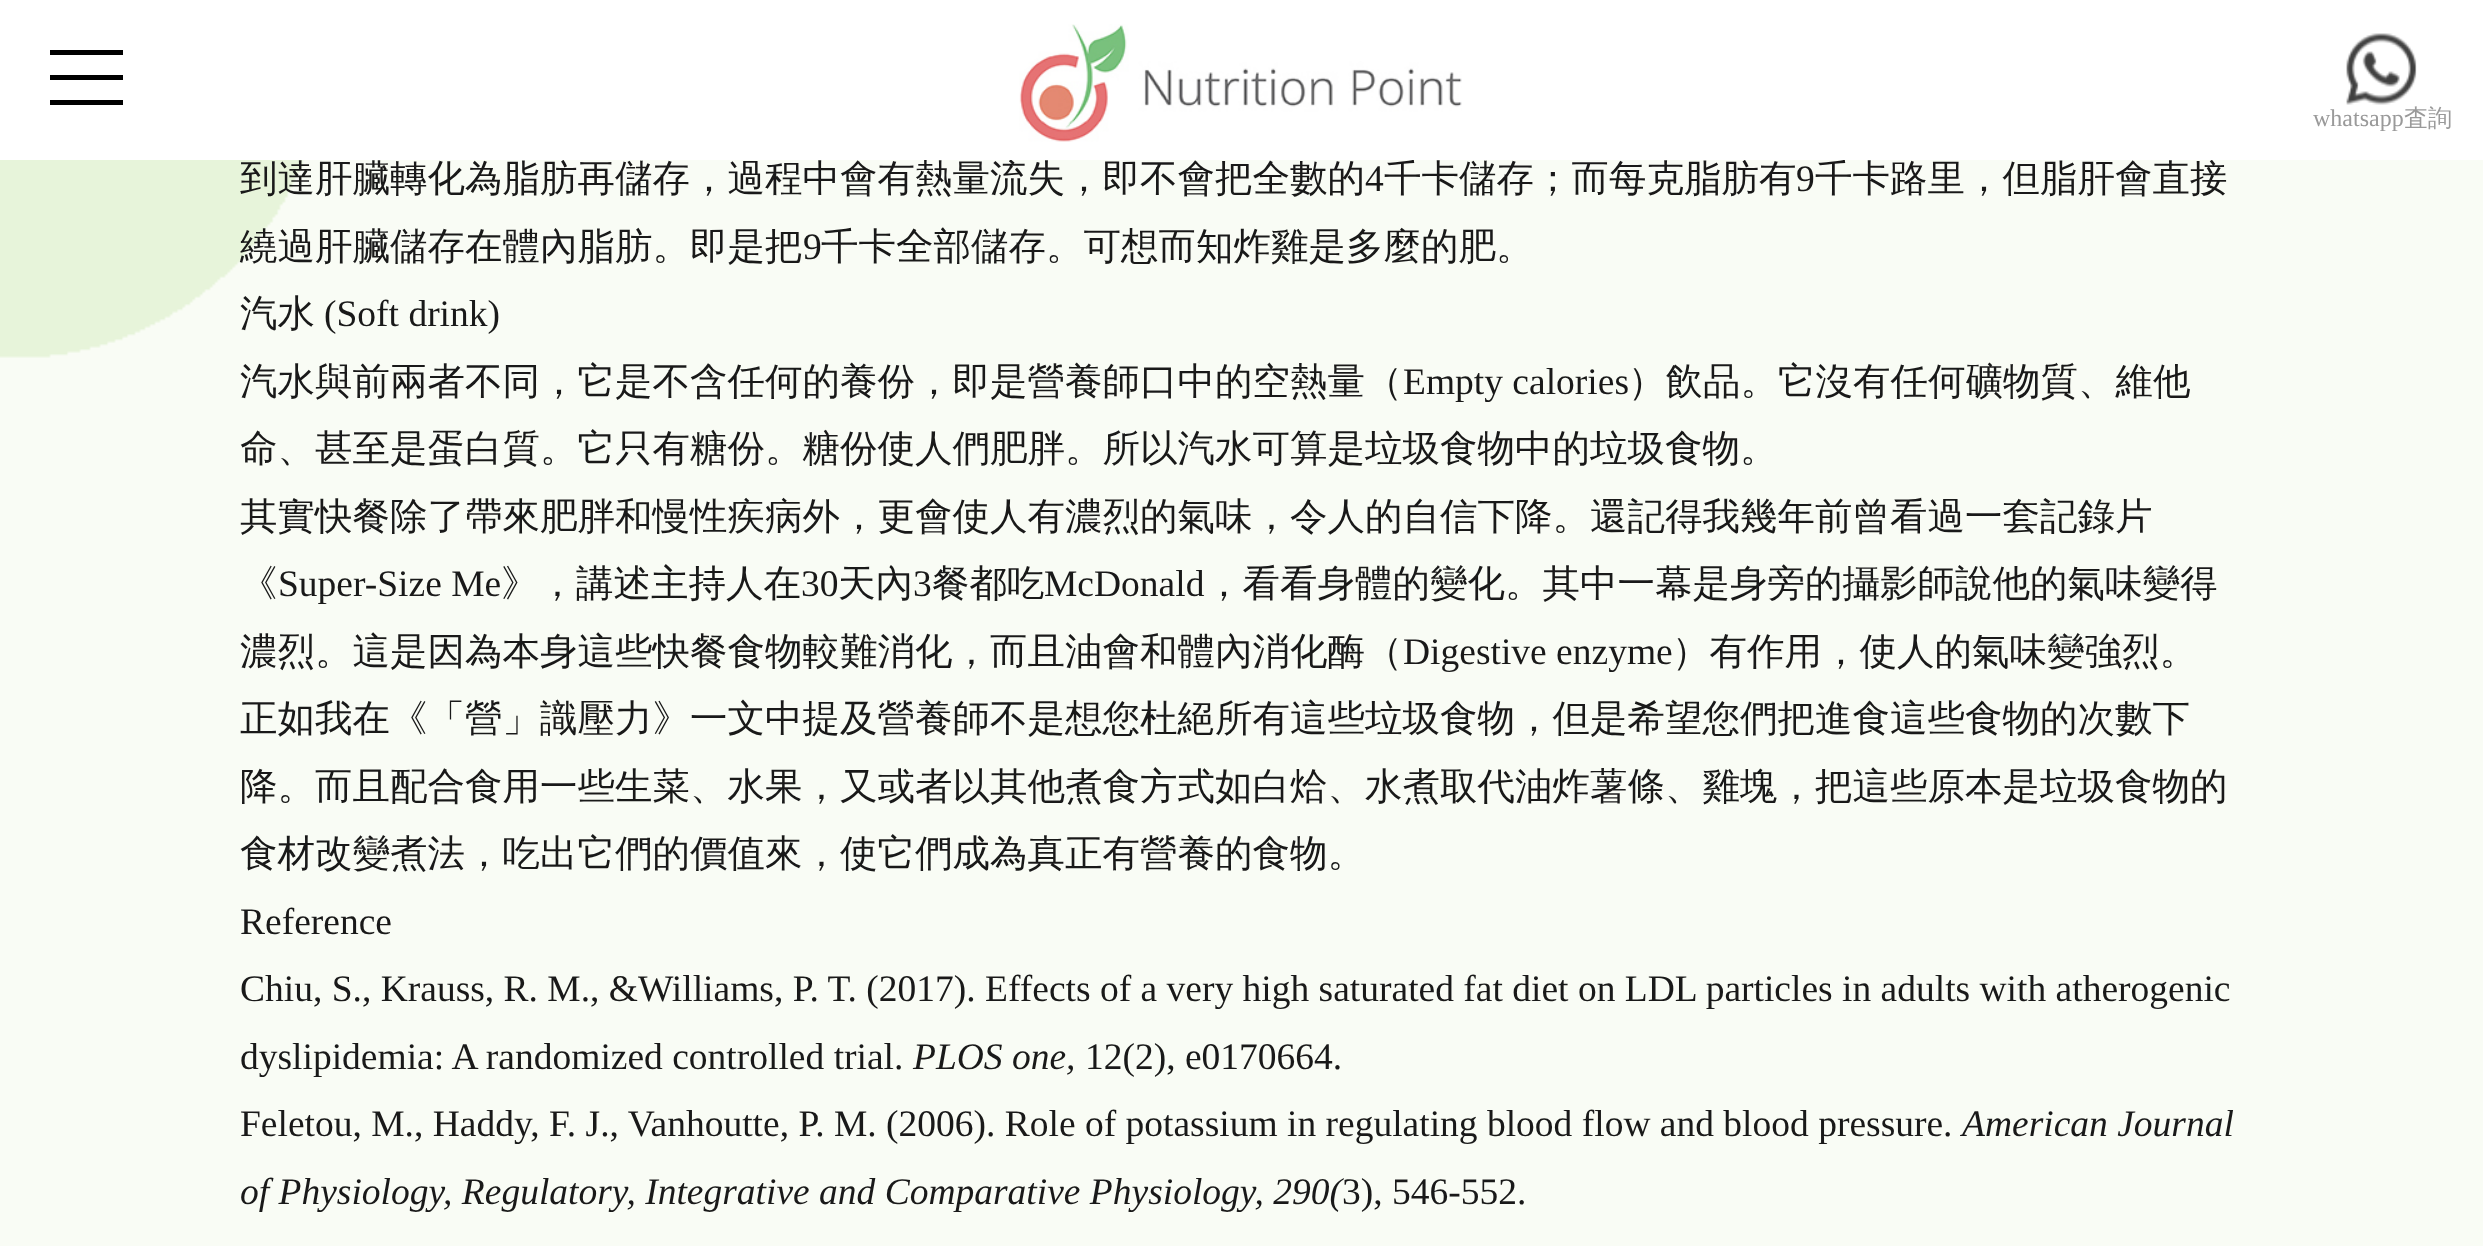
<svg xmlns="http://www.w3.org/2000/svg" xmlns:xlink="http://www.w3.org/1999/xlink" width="2483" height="1246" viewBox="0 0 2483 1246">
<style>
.cls-1{font:500 37.5px WenQuanYi Zen Hei;fill:#191919}
.cls-2{font:37.5px Liberation Serif;fill:#191919}
.cls-3{font:500 24px WenQuanYi Zen Hei;fill:#9a9a9a}
.cls-4{font:24px Liberation Serif;fill:#9a9a9a}
.cls-5{font:italic 37.5px Liberation Serif;fill:#191919}
</style>
<rect width="100%" height="100%" fill="#f9fcf5"/>
<image xlink:href="image2.png" x="0" y="160" width="306" height="198"/>
<text class="cls-1" x="240" y="191">到達肝臟轉化為脂肪再儲存，過程中會有熱量流失，即不會把全數的</text>
<text class="cls-2" x="1365" y="191">4</text>
<text class="cls-1" x="1384" y="191">千卡儲存；而每克脂肪有</text>
<text class="cls-2" x="1796" y="191">9</text>
<text class="cls-1" x="1815" y="191">千卡路里，但脂肝會直接</text>
<rect fill="#ffffff" x="0" y="0" width="2483" height="160"/>
<rect fill="#000000" x="50" y="100" width="73" height="5"/>
<rect fill="#000000" x="50" y="75" width="73" height="5"/>
<rect fill="#000000" x="50" y="50" width="73" height="5"/>
<text class="cls-3" x="2404" y="126">査詢</text>
<text class="cls-4" x="2313" y="126">whatsapp</text>
<image xlink:href="image1.png" x="2346" y="33" width="71" height="72"/>
<image xlink:href="image0.png" x="1019" y="24" width="443" height="118"/>
<text class="cls-1" x="240" y="259">繞過肝臟儲存在體內脂肪。即是把</text>
<text class="cls-2" x="803" y="259">9</text>
<text class="cls-1" x="821" y="259">千卡全部儲存。可想而知炸雞是多麼的肥。</text>
<text class="cls-1" x="240" y="326">汽水</text>
<text class="cls-2" x="324" y="326">(Soft drink)</text>
<text class="cls-1" x="240" y="394">汽水與前兩者不同，它是不含任何的養份，即是營養師口中的空熱量（</text>
<text class="cls-2" x="1403" y="394">Empty calories</text>
<text class="cls-1" x="1628" y="394">）飲品。它沒有任何礦物質、維他</text>
<text class="cls-1"><tspan x="240" y="461">命、甚至是蛋白質。它只有糖份。糖份使人們肥胖。所以汽水可算是垃圾食物中的垃圾食物。</tspan><tspan x="240" y="529">其實快餐除了帶來肥胖和慢性疾病外，更會使人有濃烈的氣味，令人的自信下降。還記得我幾年前曾看過一套記錄片</tspan><tspan x="240" y="596">《</tspan></text>
<text class="cls-2" x="278" y="596">Super-Size Me</text>
<text class="cls-1" x="501" y="596">》，講述主持人在</text>
<text class="cls-2" x="801" y="596">30</text>
<text class="cls-1" x="838" y="596">天內</text>
<text class="cls-2" x="913" y="596">3</text>
<text class="cls-1" x="932" y="596">餐都吃</text>
<text class="cls-2" x="1044" y="596">McDonald</text>
<text class="cls-1" x="1205" y="596">，看看身體的變化。其中一幕是身旁的攝影師說他的氣味變得</text>
<text class="cls-1" x="240" y="664">濃烈。這是因為本身這些快餐食物較難消化，而且油會和體內消化酶（</text>
<text class="cls-2" x="1403" y="664">Digestive enzyme</text>
<text class="cls-1" x="1672" y="664">）有作用，使人的氣味變強烈。</text>
<text class="cls-1"><tspan x="240" y="731">正如我在《「營」識壓力》一文中提及營養師不是想您杜絕所有這些垃圾食物，但是希望您們把進食這些食物的次數下</tspan><tspan x="240" y="799">降。而且配合食用一些生菜、水果，又或者以其他煮食方式如白烚、水煮取代油炸薯條、雞塊，把這些原本是垃圾食物的</tspan><tspan x="240" y="866">食材改變煮法，吃出它們的價值來，使它們成為真正有營養的食物。</tspan></text>
<text class="cls-2"><tspan x="240" y="934">Reference</tspan><tspan x="240" y="1001">Chiu, S., Krauss, R. M., &amp;Williams, P. T. (2017). Effects of a very high saturated fat diet on LDL particles in adults with atherogenic</tspan><tspan x="240" y="1069">dyslipidemia: A randomized controlled trial.</tspan></text>
<text class="cls-5" x="913" y="1069">PLOS one,</text>
<text class="cls-2" x="1085" y="1069">12(2), e0170664.</text>
<text class="cls-2" x="240" y="1136">Feletou, M., Haddy, F. J., Vanhoutte, P. M. (2006). Role of potassium in regulating blood flow and blood pressure.</text>
<text class="cls-5" x="1962" y="1136">American Journal</text>
<text class="cls-5" x="240" y="1204">of Physiology, Regulatory, Integrative and Comparative Physiology, 290(</text>
<text class="cls-2" x="1342" y="1204">3), 546-552.</text>
</svg>
